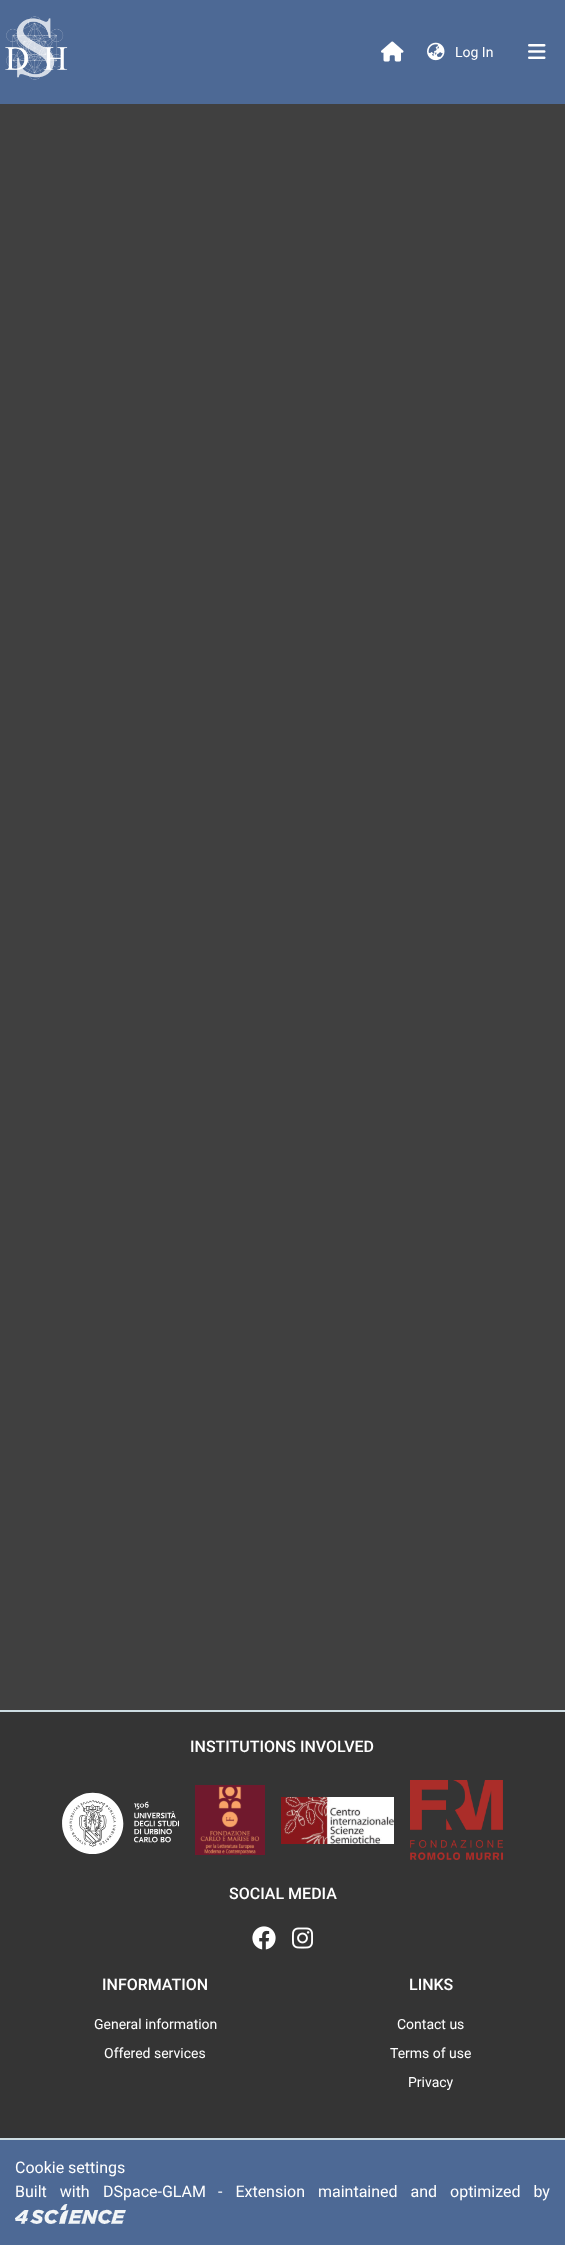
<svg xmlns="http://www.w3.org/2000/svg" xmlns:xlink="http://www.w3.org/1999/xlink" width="565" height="2245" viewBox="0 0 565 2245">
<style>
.cls-1{font:14px Roboto;fill:#ffffff}
.cls-2{font:500 16px Roboto;fill:#ffffff}
.cls-3{font:16px Roboto;fill:#ffffff}
</style>
<rect width="100%" height="100%" fill="#404040"/>
<rect fill="#4d6995" x="0" y="0" width="565" height="104"/>
<image xlink:href="image0.png" x="5" y="16" width="63" height="64"/>
<image xlink:href="image1.png" x="381" y="41" width="23" height="21"/>
<image xlink:href="image2.png" x="427" y="42" width="18" height="19"/>
<image xlink:href="image3.png" x="528" y="44" width="18" height="15"/>
<rect fill="#343434" x="0" y="1712" width="565" height="426"/>
<rect fill="#cddce2" x="0" y="1710" width="565" height="2"/>
<rect fill="#cddce2" x="0" y="2138" width="565" height="2"/>
<image xlink:href="image4.png" x="62" y="1792" width="117" height="62"/>
<image xlink:href="image5.png" x="195" y="1785" width="70" height="70"/>
<image xlink:href="image6.png" x="281" y="1797" width="113" height="47"/>
<image xlink:href="image7.png" x="410" y="1780" width="93" height="80"/>
<image xlink:href="image8.png" x="252" y="1926" width="24" height="24"/>
<image xlink:href="image9.png" x="292" y="1927" width="21" height="22"/>
<rect fill="#4d6995" x="0" y="2140" width="565" height="105"/>
<image xlink:href="image10.png" x="15" y="2204" width="111" height="20"/>
<text class="cls-1" x="455" y="57">Log In</text>
<text class="cls-2" x="190" y="1752">INSTITUTIONS INVOLVED</text>
<text class="cls-2" x="229" y="1899">SOCIAL MEDIA</text>
<text class="cls-2" x="102" y="1990">INFORMATION</text>
<text class="cls-1" x="94" y="2029">General information</text>
<text class="cls-1" x="104" y="2058">Offered services</text>
<text class="cls-2" x="409" y="1990">LINKS</text>
<text class="cls-1" x="397" y="2029">Contact us</text>
<text class="cls-1" x="390" y="2058">Terms of use</text>
<text class="cls-1" x="408" y="2087">Privacy</text>
<text class="cls-3"><tspan x="15" y="2173">Cookie settings</tspan><tspan x="15" y="2197" word-spacing="9">Built with</tspan></text>
<text class="cls-3" x="103" y="2197">DSpace-GLAM</text>
<text class="cls-3" x="218" y="2197" word-spacing="9">- Extension maintained and optimized by</text>
</svg>
